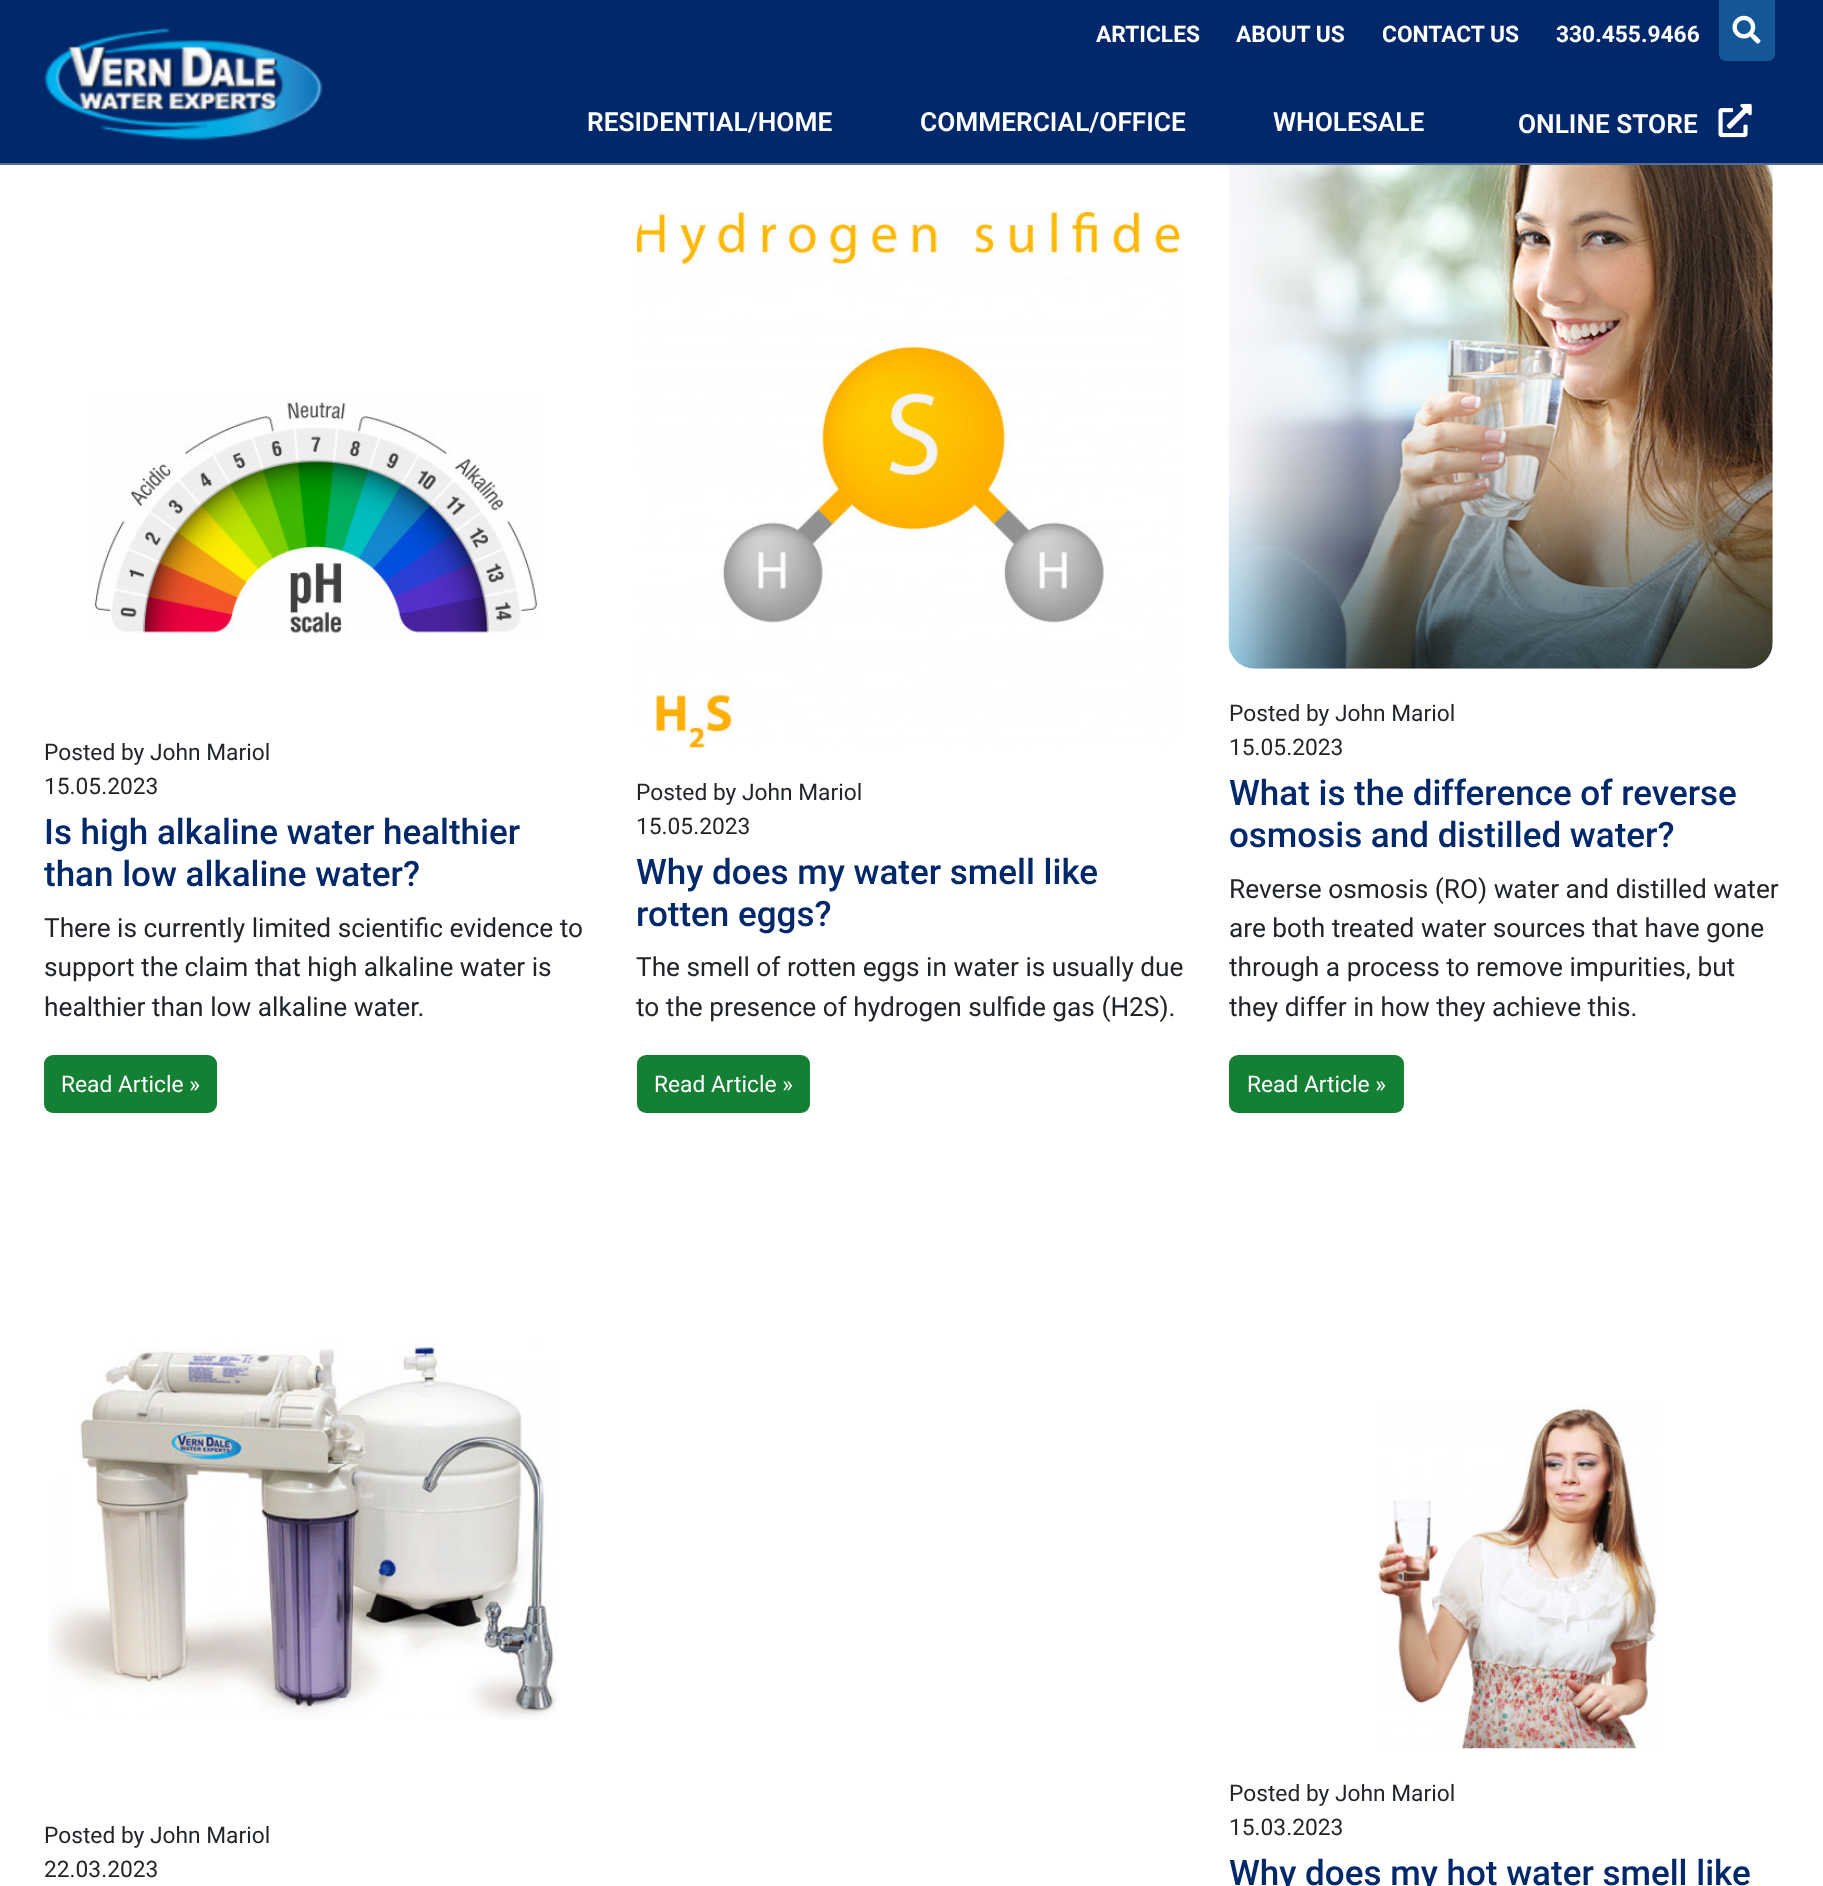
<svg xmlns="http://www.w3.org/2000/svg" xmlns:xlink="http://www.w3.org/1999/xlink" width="1823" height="1886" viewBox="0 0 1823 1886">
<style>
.cls-1{font:bold 22.75px Roboto;fill:#ffffff}
.cls-2{font:600 26.25px Roboto;fill:#ffffff}
.cls-3{font:22.75px Roboto;fill:#212529}
.cls-4{font:500 35px Roboto;fill:#00286b}
.cls-5{font:26.25px Roboto;fill:#212529}
.cls-6{font:22.75px Roboto;fill:#ffffff}
</style>
<rect width="100%" height="100%" fill="#ffffff"/>
<rect fill="#00286b" x="0" y="0" width="1823" height="163"/>
<rect fill="#526d9a" x="0" y="163" width="1823" height="2"/>
<path fill="#145796" d="M1719 0H1775V54C1775 58 1772 61 1768 61H1726C1722 61 1719 58 1719 54Z"/>
<image xlink:href="image0.png" x="1732" y="15" width="29" height="29"/>
<image xlink:href="image1.png" x="44" y="27" width="279" height="114"/>
<image xlink:href="image2.png" x="1718" y="103" width="34" height="35"/>
<image xlink:href="image3.png" x="94" y="399" width="445" height="234"/>
<rect fill="#148034" x="44" y="1055" width="173" height="58" rx="9"/>
<image xlink:href="image4.png" x="637" y="212" width="543" height="536"/>
<rect fill="#148034" x="637" y="1055" width="173" height="58" rx="9"/>
<image xlink:href="image5.png" x="1228" y="165" width="545" height="504"/>
<rect fill="#148034" x="1229" y="1055" width="175" height="58" rx="9"/>
<image xlink:href="image6.png" x="48" y="1342" width="510" height="378"/>
<image xlink:href="image7.png" x="1376" y="1405" width="282" height="344"/>
<text class="cls-1" x="1096" y="42">ARTICLES</text>
<text class="cls-1" x="1236" y="42">ABOUT US</text>
<text class="cls-1" x="1382" y="42">CONTACT US</text>
<text class="cls-1" x="1556" y="42">330.455.9466</text>
<text class="cls-2" x="587" y="131">RESIDENTIAL/HOME</text>
<text class="cls-2" x="920" y="131">COMMERCIAL/OFFICE</text>
<text class="cls-2" x="1273" y="131">WHOLESALE</text>
<text class="cls-2" x="1518" y="133">ONLINE STORE</text>
<text class="cls-3"><tspan x="44" y="760">Posted by John Mariol</tspan><tspan x="44" y="794">15.05.2023</tspan></text>
<text class="cls-4"><tspan x="44" y="844">Is high alkaline water healthier</tspan><tspan x="44" y="886">than low alkaline water?</tspan></text>
<text class="cls-5"><tspan x="44" y="937">There is currently limited scientific evidence to</tspan><tspan x="44" y="976">support the claim that high alkaline water is</tspan><tspan x="44" y="1016">healthier than low alkaline water.</tspan></text>
<text class="cls-6" x="61" y="1092">Read Article »</text>
<text class="cls-3"><tspan x="636" y="800">Posted by John Mariol</tspan><tspan x="636" y="834">15.05.2023</tspan></text>
<text class="cls-4"><tspan x="636" y="884">Why does my water smell like</tspan><tspan x="636" y="926">rotten eggs?</tspan></text>
<text class="cls-5"><tspan x="636" y="976">The smell of rotten eggs in water is usually due</tspan><tspan x="636" y="1016">to the presence of hydrogen sulfide gas (H2S).</tspan></text>
<text class="cls-6" x="654" y="1092">Read Article »</text>
<text class="cls-3"><tspan x="1229" y="721">Posted by John Mariol</tspan><tspan x="1229" y="755">15.05.2023</tspan></text>
<text class="cls-4"><tspan x="1229" y="805">What is the difference of reverse</tspan><tspan x="1229" y="847">osmosis and distilled water?</tspan></text>
<text class="cls-5"><tspan x="1229" y="898">Reverse osmosis (RO) water and distilled water</tspan><tspan x="1229" y="937">are both treated water sources that have gone</tspan><tspan x="1229" y="976">through a process to remove impurities, but</tspan><tspan x="1229" y="1016">they differ in how they achieve this.</tspan></text>
<text class="cls-6" x="1247" y="1092">Read Article »</text>
<text class="cls-3"><tspan x="44" y="1843">Posted by John Mariol</tspan><tspan x="44" y="1877">22.03.2023</tspan></text>
<text class="cls-3"><tspan x="1229" y="1801">Posted by John Mariol</tspan><tspan x="1229" y="1835">15.03.2023</tspan></text>
<text class="cls-4" x="1229" y="1885">Why does my hot water smell like</text>
</svg>
